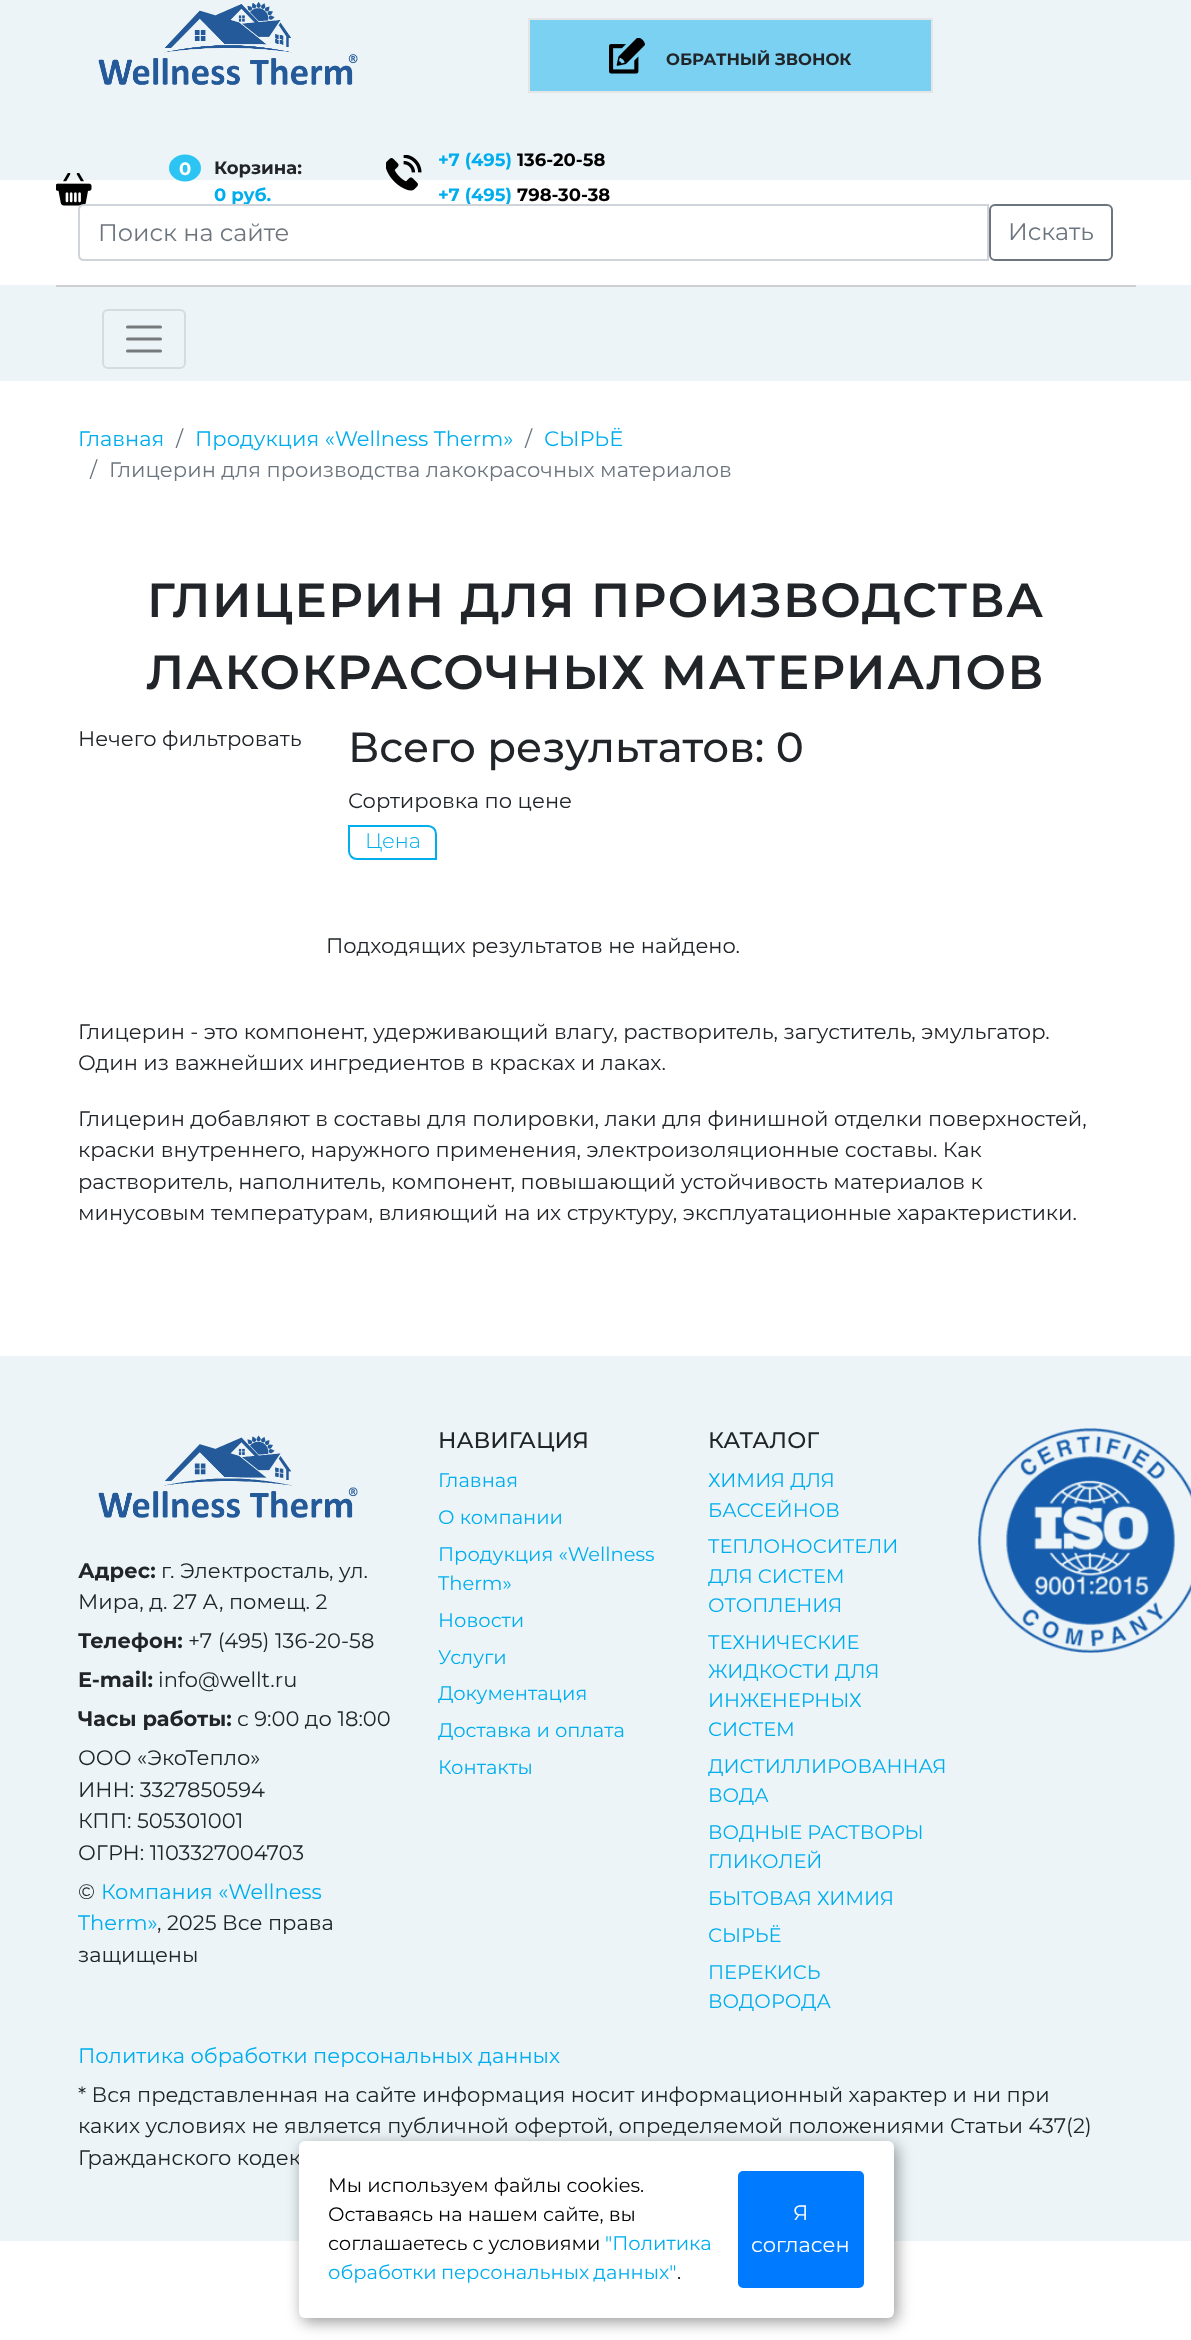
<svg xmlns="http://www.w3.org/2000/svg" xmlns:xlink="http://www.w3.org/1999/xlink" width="1191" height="2340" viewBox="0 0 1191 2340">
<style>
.cls-1{font:bold 16.5px Montserrat;fill:#212529}
.cls-2{font:bold 18px Montserrat;fill:#ffffff}
.cls-3{font:bold 18px Montserrat;fill:#212529}
.cls-4{font:bold 18px Montserrat;fill:#00aeee}
.cls-5{font:bold 18px Montserrat;fill:#000000}
.cls-6{font:24px Montserrat;fill:#6c757d}
.cls-7{font:21px Montserrat;fill:#00aeee}
.cls-8{font:21px Montserrat;fill:#6c757d}
.cls-9{font:600 48px Montserrat;letter-spacing:1.5px;fill:#212529}
.cls-10{font:21px Montserrat;fill:#212529}
.cls-11{font:500 42px Montserrat;fill:#212529}
.cls-12{font:300 21px Montserrat;fill:#00aeee}
.cls-13{font:bold 21px Montserrat;fill:#212529}
.cls-14{font:500 22.5px Montserrat;fill:#212529}
.cls-15{font:19.5px Montserrat;fill:#00aeee}
.cls-16{font:19.5px Montserrat;fill:#000000}
.cls-17{font:21px Montserrat;fill:#ffffff}
</style>
<rect width="100%" height="100%" fill="#ffffff"/>
<rect fill="#ecf4f7" x="0" y="0" width="1191" height="180"/>
<image xlink:href="image0.png" x="98" y="2" width="260" height="83"/>
<rect fill="#7bd1f2" stroke="#e5e5e5" stroke-width="2" x="529" y="19" width="403" height="73"/>
<image xlink:href="image1.png" x="609" y="38" width="36" height="36"/>
<ellipse fill="#2bc4f3" cx="185" cy="168" rx="16" ry="13.5"/>
<image xlink:href="image2.png" x="56" y="173" width="36" height="33"/>
<image xlink:href="image3.png" x="386" y="155" width="36" height="36"/>
<rect fill="none" stroke="#6c757d" stroke-width="2" x="990" y="205" width="122" height="55" rx="5"/>
<rect fill="#ecf4f7" x="0" y="285" width="1191" height="96"/>
<rect fill="#cfcfcf" x="56" y="285" width="1080" height="2"/>
<rect fill="none" stroke="#d4dcde" stroke-width="2" x="103" y="310" width="82" height="58" rx="5"/>
<path fill="none" stroke="#767a7c" stroke-width="3" stroke-linecap="round" d="M127.5 327H160.5M127.5 339H160.5M127.5 351H160.5"/>
<path fill="none" stroke="#00aeee" stroke-width="2" d="M349 826H428C432.5 826 436 829.5 436 834V859H357C352.5 859 349 855.5 349 851Z"/>
<rect fill="#ecf4f7" x="0" y="1356" width="1191" height="885"/>
<image xlink:href="image4.png" x="98" y="1435" width="260" height="83"/>
<image xlink:href="image5.png" x="978" y="1428" width="213" height="225"/>
<rect fill="#000000" fill-opacity="0.4" filter="blur(7.5px)" x="302" y="2145" width="595" height="177" rx="6"/>
<text class="cls-1" x="666" y="65">ОБРАТНЫЙ ЗВОНОК</text>
<text class="cls-2" x="179" y="175">0</text>
<text class="cls-3" x="214" y="174">Корзина:</text>
<text class="cls-4" x="214" y="201">0 руб.</text>
<text class="cls-4" x="438" y="166">+7 (495)</text>
<text class="cls-5" x="517" y="166">136-20-58</text>
<text class="cls-4" x="438" y="201">+7 (495)</text>
<text class="cls-5" x="517" y="201">798-30-38</text>
<path fill="none" stroke="#ced4da" stroke-width="2" d="M84 205H988V260H84C81 260 79 258 79 255V210C79 207 81 205 84 205Z"/>
<text class="cls-6" x="98" y="241">Поиск на сайте</text>
<text class="cls-6" x="1008" y="240">Искать</text>
<text class="cls-7" x="78" y="446">Главная</text>
<text class="cls-8" x="176" y="446">/</text>
<text class="cls-7" x="195" y="446">Продукция «Wellness Therm»</text>
<text class="cls-8" x="525" y="446">/</text>
<text class="cls-7" x="544" y="446">СЫРЬЁ</text>
<text class="cls-8" x="90" y="477">/</text>
<text class="cls-8" x="109" y="477">Глицерин для производства лакокрасочных материалов</text>
<text class="cls-9" x="147" y="617">ГЛИЦЕРИН ДЛЯ ПРОИЗВОДСТВА</text>
<text class="cls-9" x="146" y="689">ЛАКОКРАСОЧНЫХ МАТЕРИАЛОВ</text>
<text class="cls-10" x="78" y="746">Нечего фильтровать</text>
<text class="cls-11" x="348" y="762">Всего результатов: 0</text>
<text class="cls-10" x="348" y="808">Сортировка по цене</text>
<text class="cls-12" x="365" y="848">Цена</text>
<text class="cls-10" x="326" y="953">Подходящих результатов не найдено.</text>
<text class="cls-10"><tspan x="78" y="1039">Глицерин - это компонент, удерживающий влагу, растворитель, загуститель, эмульгатор.</tspan><tspan x="78" y="1070">Один из важнейших ингредиентов в красках и лаках.</tspan></text>
<text class="cls-10"><tspan x="78" y="1126">Глицерин добавляют в составы для полировки, лаки для финишной отделки поверхностей,</tspan><tspan x="78" y="1157">краски внутреннего, наружного применения, электроизоляционные составы. Как</tspan><tspan x="78" y="1189">растворитель, наполнитель, компонент, повышающий устойчивость материалов к</tspan><tspan x="78" y="1220">минусовым температурам, влияющий на их структуру, эксплуатационные характеристики.</tspan></text>
<text class="cls-13" x="78" y="1578">Адрес:</text>
<text class="cls-10" x="161" y="1578">г. Электросталь, ул.</text>
<text class="cls-10" x="78" y="1609">Мира, д. 27 А, помещ. 2</text>
<text class="cls-13" x="78" y="1648">Телефон:</text>
<text class="cls-10" x="188" y="1648">+7 (495) 136-20-58</text>
<text class="cls-13" x="78" y="1687">E-mail:</text>
<text class="cls-10" x="158" y="1687">info@wellt.ru</text>
<text class="cls-13" x="78" y="1726">Часы работы:</text>
<text class="cls-10" x="237" y="1726">с 9:00 до 18:00</text>
<text class="cls-10"><tspan x="78" y="1765">ООО «ЭкоТепло»</tspan><tspan x="78" y="1797">ИНН: 3327850594</tspan><tspan x="78" y="1828">КПП: 505301001</tspan><tspan x="78" y="1860">ОГРН: 1103327004703</tspan><tspan x="78" y="1899">©</tspan></text>
<text class="cls-7" x="101" y="1899">Компания «Wellness</text>
<text class="cls-7" x="78" y="1930">Therm»</text>
<text class="cls-10" x="157" y="1930">, 2025 Все права</text>
<text class="cls-10" x="78" y="1962">защищены</text>
<text class="cls-14" x="438" y="1448">НАВИГАЦИЯ</text>
<text class="cls-15"><tspan x="438" y="1487">Главная</tspan><tspan x="438" y="1524">О компании</tspan><tspan x="438" y="1561">Продукция «Wellness</tspan><tspan x="438" y="1590">Therm»</tspan><tspan x="438" y="1627">Новости</tspan><tspan x="438" y="1664">Услуги</tspan><tspan x="438" y="1700">Документация</tspan><tspan x="438" y="1737">Доставка и оплата</tspan><tspan x="438" y="1774">Контакты</tspan></text>
<text class="cls-14" x="708" y="1448">КАТАЛОГ</text>
<text class="cls-15"><tspan x="708" y="1487">ХИМИЯ ДЛЯ</tspan><tspan x="708" y="1517">БАССЕЙНОВ</tspan><tspan x="708" y="1553">ТЕПЛОНОСИТЕЛИ</tspan><tspan x="708" y="1583">ДЛЯ СИСТЕМ</tspan><tspan x="708" y="1612">ОТОПЛЕНИЯ</tspan><tspan x="708" y="1649">ТЕХНИЧЕСКИЕ</tspan><tspan x="708" y="1678">ЖИДКОСТИ ДЛЯ</tspan><tspan x="708" y="1707">ИНЖЕНЕРНЫХ</tspan><tspan x="708" y="1736">СИСТЕМ</tspan><tspan x="708" y="1773">ДИСТИЛЛИРОВАННАЯ</tspan><tspan x="708" y="1802">ВОДА</tspan><tspan x="708" y="1839">ВОДНЫЕ РАСТВОРЫ</tspan><tspan x="708" y="1868">ГЛИКОЛЕЙ</tspan><tspan x="708" y="1905">БЫТОВАЯ ХИМИЯ</tspan><tspan x="708" y="1942">СЫРЬЁ</tspan><tspan x="708" y="1979">ПЕРЕКИСЬ</tspan><tspan x="708" y="2008">ВОДОРОДА</tspan></text>
<text class="cls-7" x="78" y="2063">Политика обработки персональных данных</text>
<text class="cls-10"><tspan x="78" y="2102">* Вся представленная на сайте информация носит информационный характер и ни при</tspan><tspan x="78" y="2133">каких условиях не является публичной офертой, определяемой положениями Статьи 437(2)</tspan><tspan x="78" y="2165">Гражданского кодек</tspan></text>
<rect fill="#ffffff" x="299" y="2141" width="595" height="177" rx="6"/>
<text class="cls-16"><tspan x="328" y="2192">Мы используем файлы cookies.</tspan><tspan x="328" y="2221">Оставаясь на нашем сайте, вы</tspan><tspan x="328" y="2250">соглашаетесь с условиями</tspan></text>
<text class="cls-15" x="605" y="2250">"Политика</text>
<text class="cls-15" x="328" y="2279" word-spacing="-1">обработки персональных данных"</text>
<text class="cls-16" x="677" y="2279">.</text>
<rect fill="#007bff" stroke="#007bff" stroke-width="2" x="739" y="2172" width="124" height="115" rx="4"/>
<text class="cls-17" x="793" y="2220">Я</text>
<text class="cls-17" x="751" y="2252">согласен</text>
</svg>
